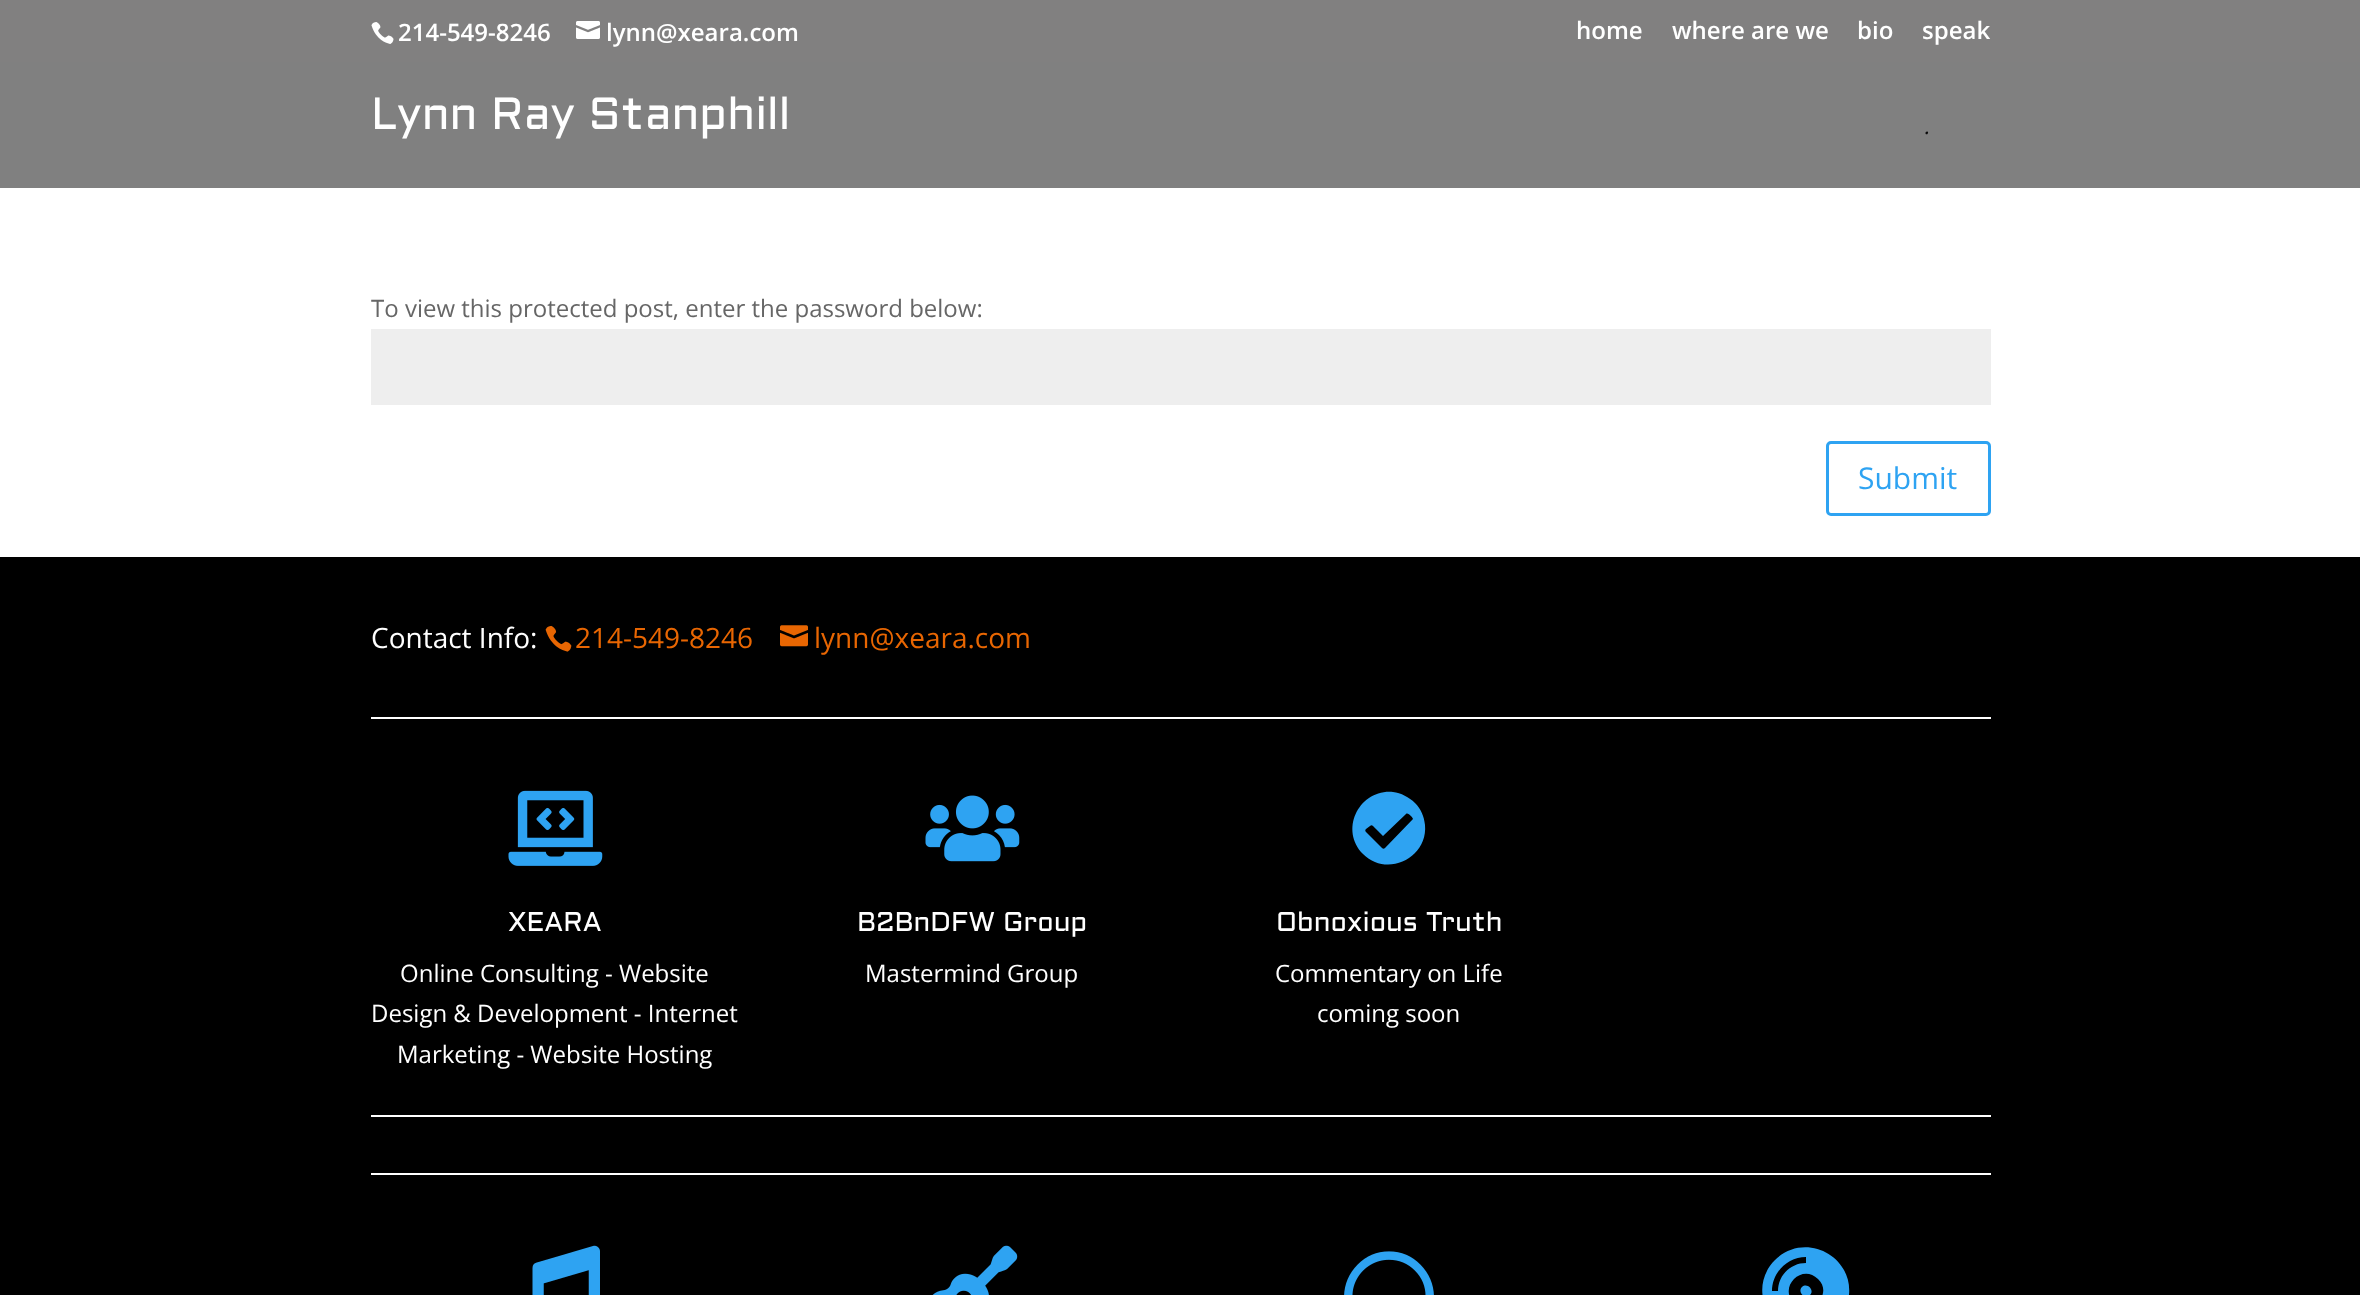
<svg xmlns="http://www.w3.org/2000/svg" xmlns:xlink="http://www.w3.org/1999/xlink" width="2360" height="1295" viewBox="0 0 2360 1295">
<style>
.cls-1{font:600 24px Open Sans;fill:#ffffff}
.cls-2{font:45px Aldrich;fill:#ffffff}
.cls-3{font:italic 22px Open Sans;fill:#0a0a0a}
.cls-4{font:24px Open Sans;fill:#666666}
.cls-5{font:30px Open Sans;fill:#2ea3f2}
.cls-6{font:28px Open Sans;fill:#ffffff}
.cls-7{font:28px Open Sans;fill:#e86602}
.cls-8{font:27px Aldrich;fill:#ffffff}
.cls-9{font:24px Open Sans;fill:#ffffff}
</style>
<rect width="100%" height="100%" fill="#000000"/>
<rect fill="#818080" x="0" y="0" width="2360" height="62"/>
<image xlink:href="image0.png" x="371" y="22" width="23" height="22"/>
<image xlink:href="image1.png" x="576" y="21" width="24" height="18"/>
<rect fill="#808080" x="0" y="62" width="2360" height="126"/>
<rect fill="#ffffff" x="0" y="188" width="2360" height="369"/>
<rect fill="#eeeeee" x="371" y="329" width="1620" height="76"/>
<rect fill="none" stroke="#2ea3f2" stroke-width="3" x="1827.5" y="442.5" width="162" height="72" rx="3.5"/>
<image xlink:href="image2.png" x="545" y="625" width="27" height="27"/>
<image xlink:href="image3.png" x="780" y="625" width="28" height="22"/>
<rect fill="#ffffff" x="371" y="717" width="1620" height="2"/>
<image xlink:href="image4.png" x="508" y="790" width="95" height="76"/>
<image xlink:href="image5.png" x="925" y="795" width="95" height="67"/>
<path fill="#2ea3f2" d="M1415 803C1421 809 1424 816 1425 825C1428 858 1387 878 1363 854C1339 830 1359 789 1393 792C1401 793 1409 797 1415 803ZM1385 848L1413 819C1413 818 1408 812 1406 814L1383 836L1373 826C1372 825 1371 825 1370 826L1366 829C1365 830 1365 831 1366 832L1382 848C1383 849 1384 849 1385 848Z"/>
<rect fill="#ffffff" x="371" y="1115" width="1620" height="2"/>
<rect fill="#ffffff" x="371" y="1173" width="1620" height="2"/>
<image xlink:href="image6.png" x="532" y="1245" width="68" height="50"/>
<image xlink:href="image7.png" x="932" y="1245" width="86" height="50"/>
<image xlink:href="image8.png" x="1344" y="1251" width="90" height="44"/>
<path fill="#2ea3f2" d="M1775 1260C1804 1231 1853 1255 1849 1295C1849 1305 1844 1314 1837 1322C1830 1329 1821 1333 1811 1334C1770 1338 1746 1289 1775 1260ZM1778 1291C1778 1275 1791 1263 1806 1263V1257C1788 1257 1772 1272 1772 1291ZM1794 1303C1810 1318 1834 1294 1818 1279C1802 1263 1778 1287 1794 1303ZM1802 1287C1807 1282 1815 1290 1810 1295C1805 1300 1797 1292 1802 1287Z"/>
<text class="cls-1" x="398" y="41">214-549-8246</text>
<text class="cls-1" x="606" y="41">lynn@xeara.com</text>
<text class="cls-1" x="1576" y="39">home</text>
<text class="cls-1" x="1672" y="39">where are we</text>
<text class="cls-1" x="1857" y="39">bio</text>
<text class="cls-1" x="1922" y="39">speak</text>
<text class="cls-2" x="371" y="129">Lynn Ray Stanphill</text>
<text class="cls-3" x="1925" y="134">.</text>
<text class="cls-4" x="371" y="317">To view this protected post, enter the password below:</text>
<text class="cls-5" x="1858" y="489">Submit</text>
<text class="cls-6" x="371" y="648">Contact Info:</text>
<text class="cls-7" x="575" y="648">214-549-8246</text>
<text class="cls-7" x="814" y="648">lynn@xeara.com</text>
<text class="cls-8" x="508" y="931">XEARA</text>
<text class="cls-9" x="400" y="982">Online Consulting - Website</text>
<text class="cls-9" x="371" y="1022">Design &amp; Development - Internet</text>
<text class="cls-9" x="397" y="1063">Marketing - Website Hosting</text>
<text class="cls-8" x="857" y="931">B2BnDFW Group</text>
<text class="cls-9" x="865" y="982">Mastermind Group</text>
<text class="cls-8" x="1276" y="931">Obnoxious Truth</text>
<text class="cls-9" x="1275" y="982">Commentary on Life</text>
<text class="cls-9" x="1317" y="1022">coming soon</text>
</svg>
